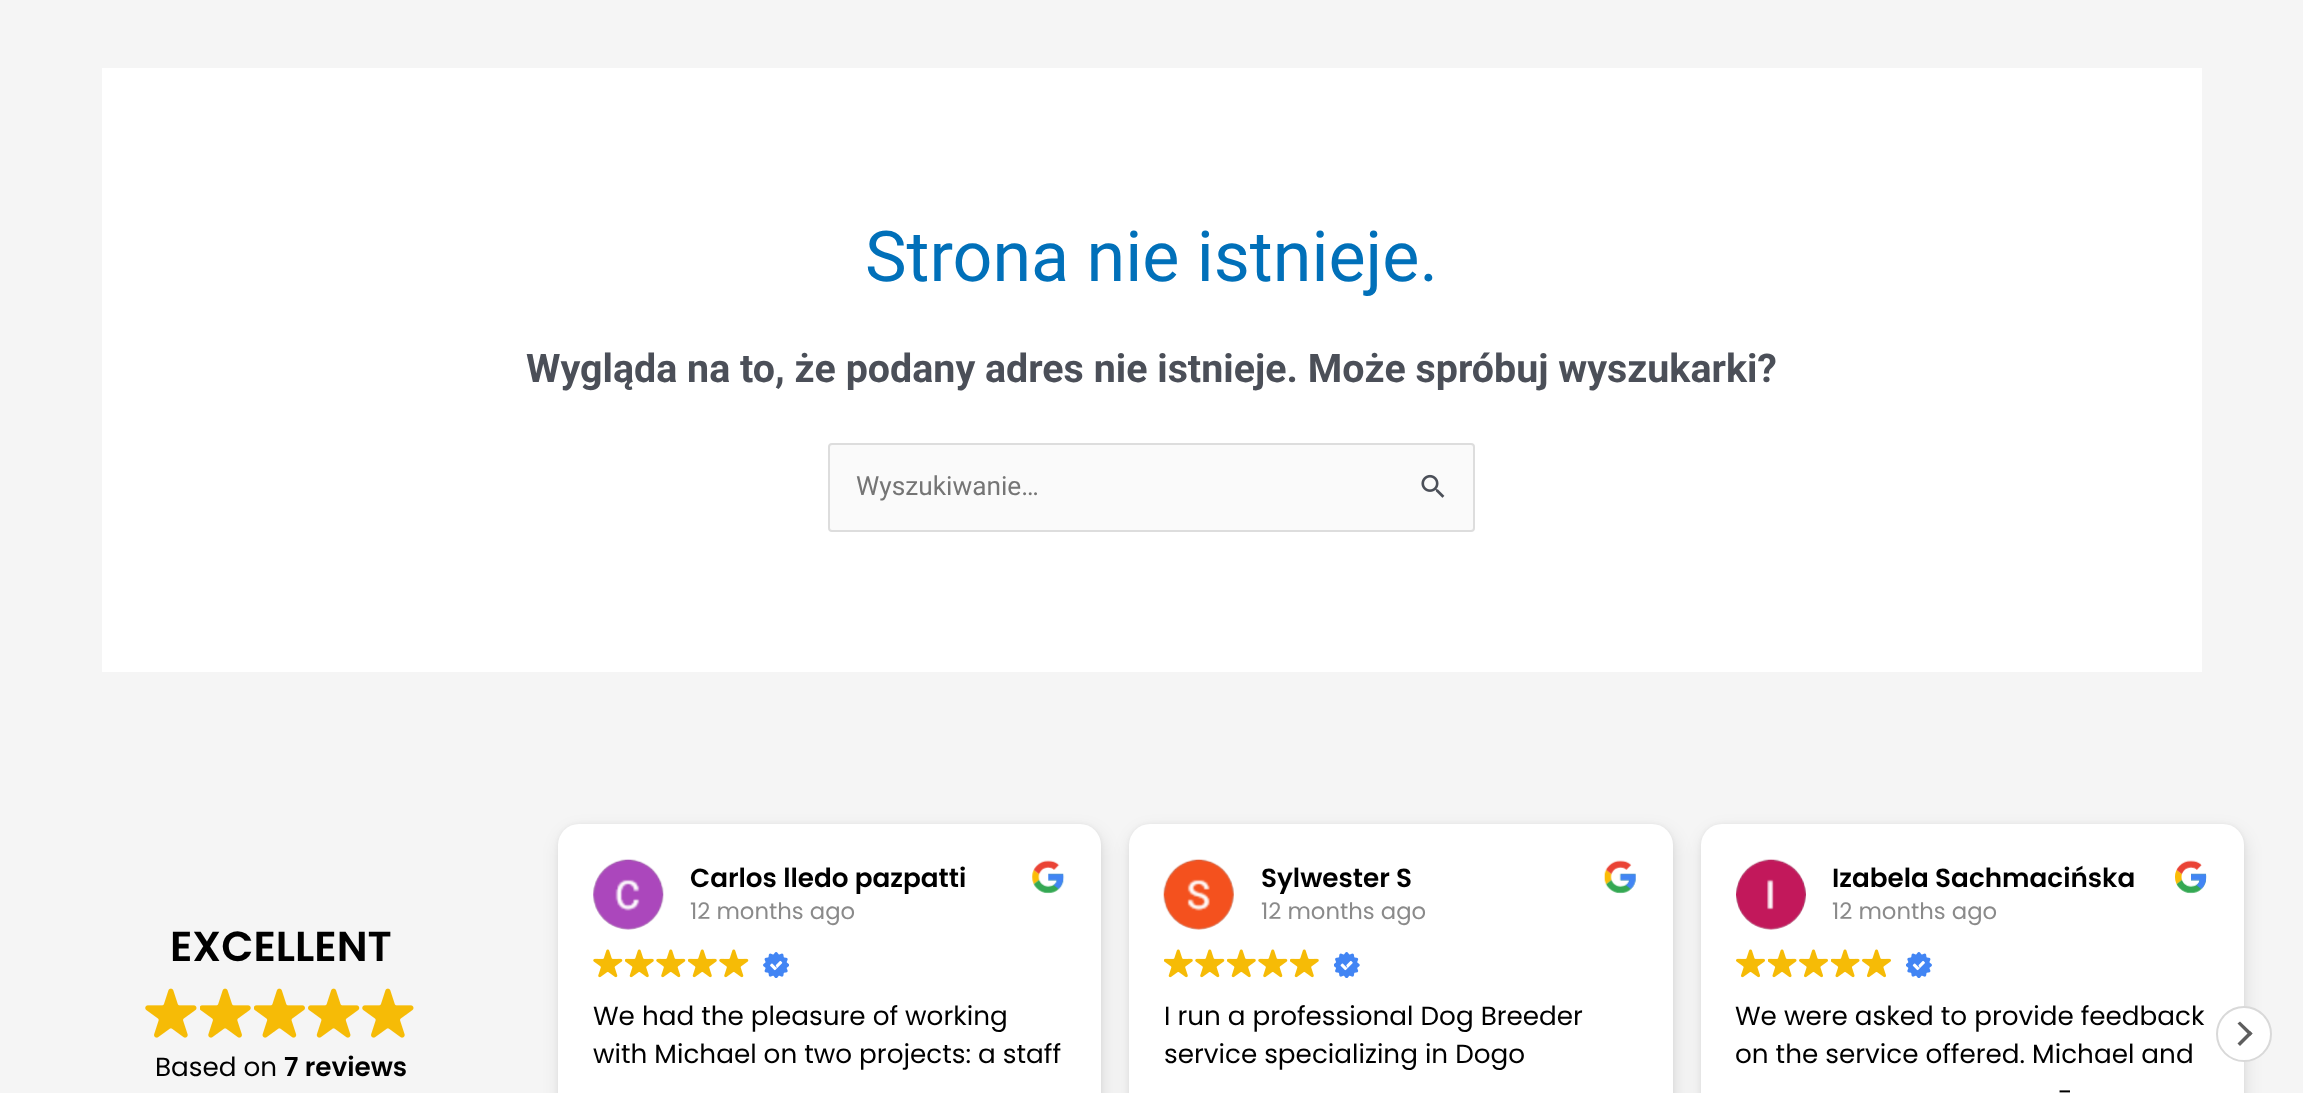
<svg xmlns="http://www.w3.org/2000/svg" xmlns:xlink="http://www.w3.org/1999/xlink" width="2303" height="1093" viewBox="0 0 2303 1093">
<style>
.cls-1{font:70px Roboto;fill:#0170b9}
.cls-2{font:bold 39.4px Roboto;fill:#4b4f58}
.cls-3{font:26.25px Roboto;fill:#757575}
.cls-4{font:600 42px Poppins;fill:#000000}
.cls-5{font:26.25px Poppins;fill:#000000}
.cls-6{font:600 26.25px Poppins;fill:#000000}
.cls-7{font:22.75px Poppins;fill:#8a8a8a}
</style>
<rect width="100%" height="100%" fill="#f5f5f5"/>
<rect fill="#ffffff" x="102" y="68" width="2100" height="604"/>
<rect fill="#fafafa" stroke="#dddddd" stroke-width="2" x="829" y="444" width="645" height="87" rx="3"/>
<image xlink:href="image0.png" x="1421" y="474" width="24" height="24"/>
<image xlink:href="image1.png" x="145" y="988" width="52" height="50"/>
<image xlink:href="image2.png" x="200" y="988" width="51" height="50"/>
<image xlink:href="image3.png" x="254" y="988" width="51" height="50"/>
<image xlink:href="image4.png" x="308" y="988" width="52" height="50"/>
<image xlink:href="image1.png" x="362" y="988" width="52" height="50"/>
<rect fill="#000000" fill-opacity="0.05" filter="blur(2px)" x="558" y="824" width="543" height="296" rx="21"/>
<rect fill="#000000" fill-opacity="0.1" filter="blur(9px)" x="560" y="831" width="543" height="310" rx="21"/>
<rect fill="#ffffff" x="558" y="824" width="543" height="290" rx="21"/>
<image xlink:href="image5.png" x="593" y="859" width="71" height="71"/>
<image xlink:href="image6.png" x="1032" y="860" width="33" height="34"/>
<image xlink:href="image7.png" x="593" y="949" width="30" height="29"/>
<image xlink:href="image8.png" x="625" y="949" width="29" height="29"/>
<image xlink:href="image7.png" x="656" y="949" width="30" height="29"/>
<image xlink:href="image8.png" x="688" y="949" width="29" height="29"/>
<image xlink:href="image7.png" x="719" y="949" width="30" height="29"/>
<image xlink:href="image9.png" x="763" y="952" width="26" height="26"/>
<rect fill="#000000" fill-opacity="0.05" filter="blur(2px)" x="1129" y="824" width="544" height="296" rx="21"/>
<rect fill="#000000" fill-opacity="0.1" filter="blur(9px)" x="1131" y="831" width="544" height="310" rx="21"/>
<rect fill="#ffffff" x="1129" y="824" width="544" height="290" rx="21"/>
<image xlink:href="image10.png" x="1163" y="859" width="71" height="71"/>
<image xlink:href="image11.png" x="1604" y="860" width="32" height="34"/>
<image xlink:href="image8.png" x="1164" y="949" width="29" height="29"/>
<image xlink:href="image7.png" x="1195" y="949" width="30" height="29"/>
<image xlink:href="image8.png" x="1227" y="949" width="29" height="29"/>
<image xlink:href="image7.png" x="1258" y="949" width="30" height="29"/>
<image xlink:href="image8.png" x="1290" y="949" width="29" height="29"/>
<image xlink:href="image12.png" x="1334" y="952" width="26" height="26"/>
<rect fill="#000000" fill-opacity="0.05" filter="blur(2px)" x="1701" y="824" width="543" height="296" rx="21"/>
<rect fill="#000000" fill-opacity="0.1" filter="blur(9px)" x="1703" y="831" width="542" height="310" rx="21"/>
<rect fill="#ffffff" x="1701" y="824" width="543" height="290" rx="21"/>
<image xlink:href="image13.png" x="1736" y="859" width="70" height="71"/>
<image xlink:href="image14.png" x="2175" y="860" width="32" height="34"/>
<image xlink:href="image15.png" x="1736" y="949" width="29" height="29"/>
<image xlink:href="image16.png" x="1768" y="949" width="29" height="29"/>
<image xlink:href="image15.png" x="1799" y="949" width="29" height="29"/>
<image xlink:href="image16.png" x="1831" y="949" width="29" height="29"/>
<image xlink:href="image15.png" x="1862" y="949" width="29" height="29"/>
<image xlink:href="image17.png" x="1906" y="952" width="26" height="26"/>
<circle fill="#ffffff" stroke="#d9d9d9" stroke-width="2" cx="2244" cy="1034" r="27"/>
<path fill="#5e5e5e" d="M2250 1036L2237.5 1023.5L2240 1021.5L2252.5 1033.5Z"/>
<path fill="#5e5e5e" d="M2240 1046L2237.5 1043.5L2250 1031L2252.5 1033.5Z"/>
<text class="cls-1" x="865" y="281">Strona nie istnieje.</text>
<text class="cls-2" x="526" y="382">Wygląda na to, że podany adres nie istnieje. Może spróbuj wyszukarki?</text>
<text class="cls-3" x="856" y="495">Wyszukiwanie…</text>
<text class="cls-4" x="170" y="961">EXCELLENT</text>
<text class="cls-5" x="155" y="1076">Based on</text>
<text class="cls-6" x="284" y="1076">7 reviews</text>
<text class="cls-6" x="690" y="887">Carlos lledo pazpatti</text>
<text class="cls-7" x="690" y="919">12 months ago</text>
<text class="cls-5"><tspan x="593" y="1025">We had the pleasure of working</tspan><tspan x="593" y="1063">with Michael on two projects: a staff</tspan></text>
<text class="cls-6" x="1261" y="887">Sylwester S</text>
<text class="cls-7" x="1261" y="919">12 months ago</text>
<text class="cls-5"><tspan x="1164" y="1025">I run a professional Dog Breeder</tspan><tspan x="1164" y="1063">service specializing in Dogo</tspan></text>
<text class="cls-6" x="1832" y="887">Izabela Sachmacińska</text>
<text class="cls-7" x="1832" y="919">12 months ago</text>
<text class="cls-5"><tspan x="1735" y="1025">We were asked to provide feedback</tspan><tspan x="1735" y="1063">on the service offered. Michael and</tspan></text>
<text class="cls-5" x="2058" y="1101">-</text>
</svg>
